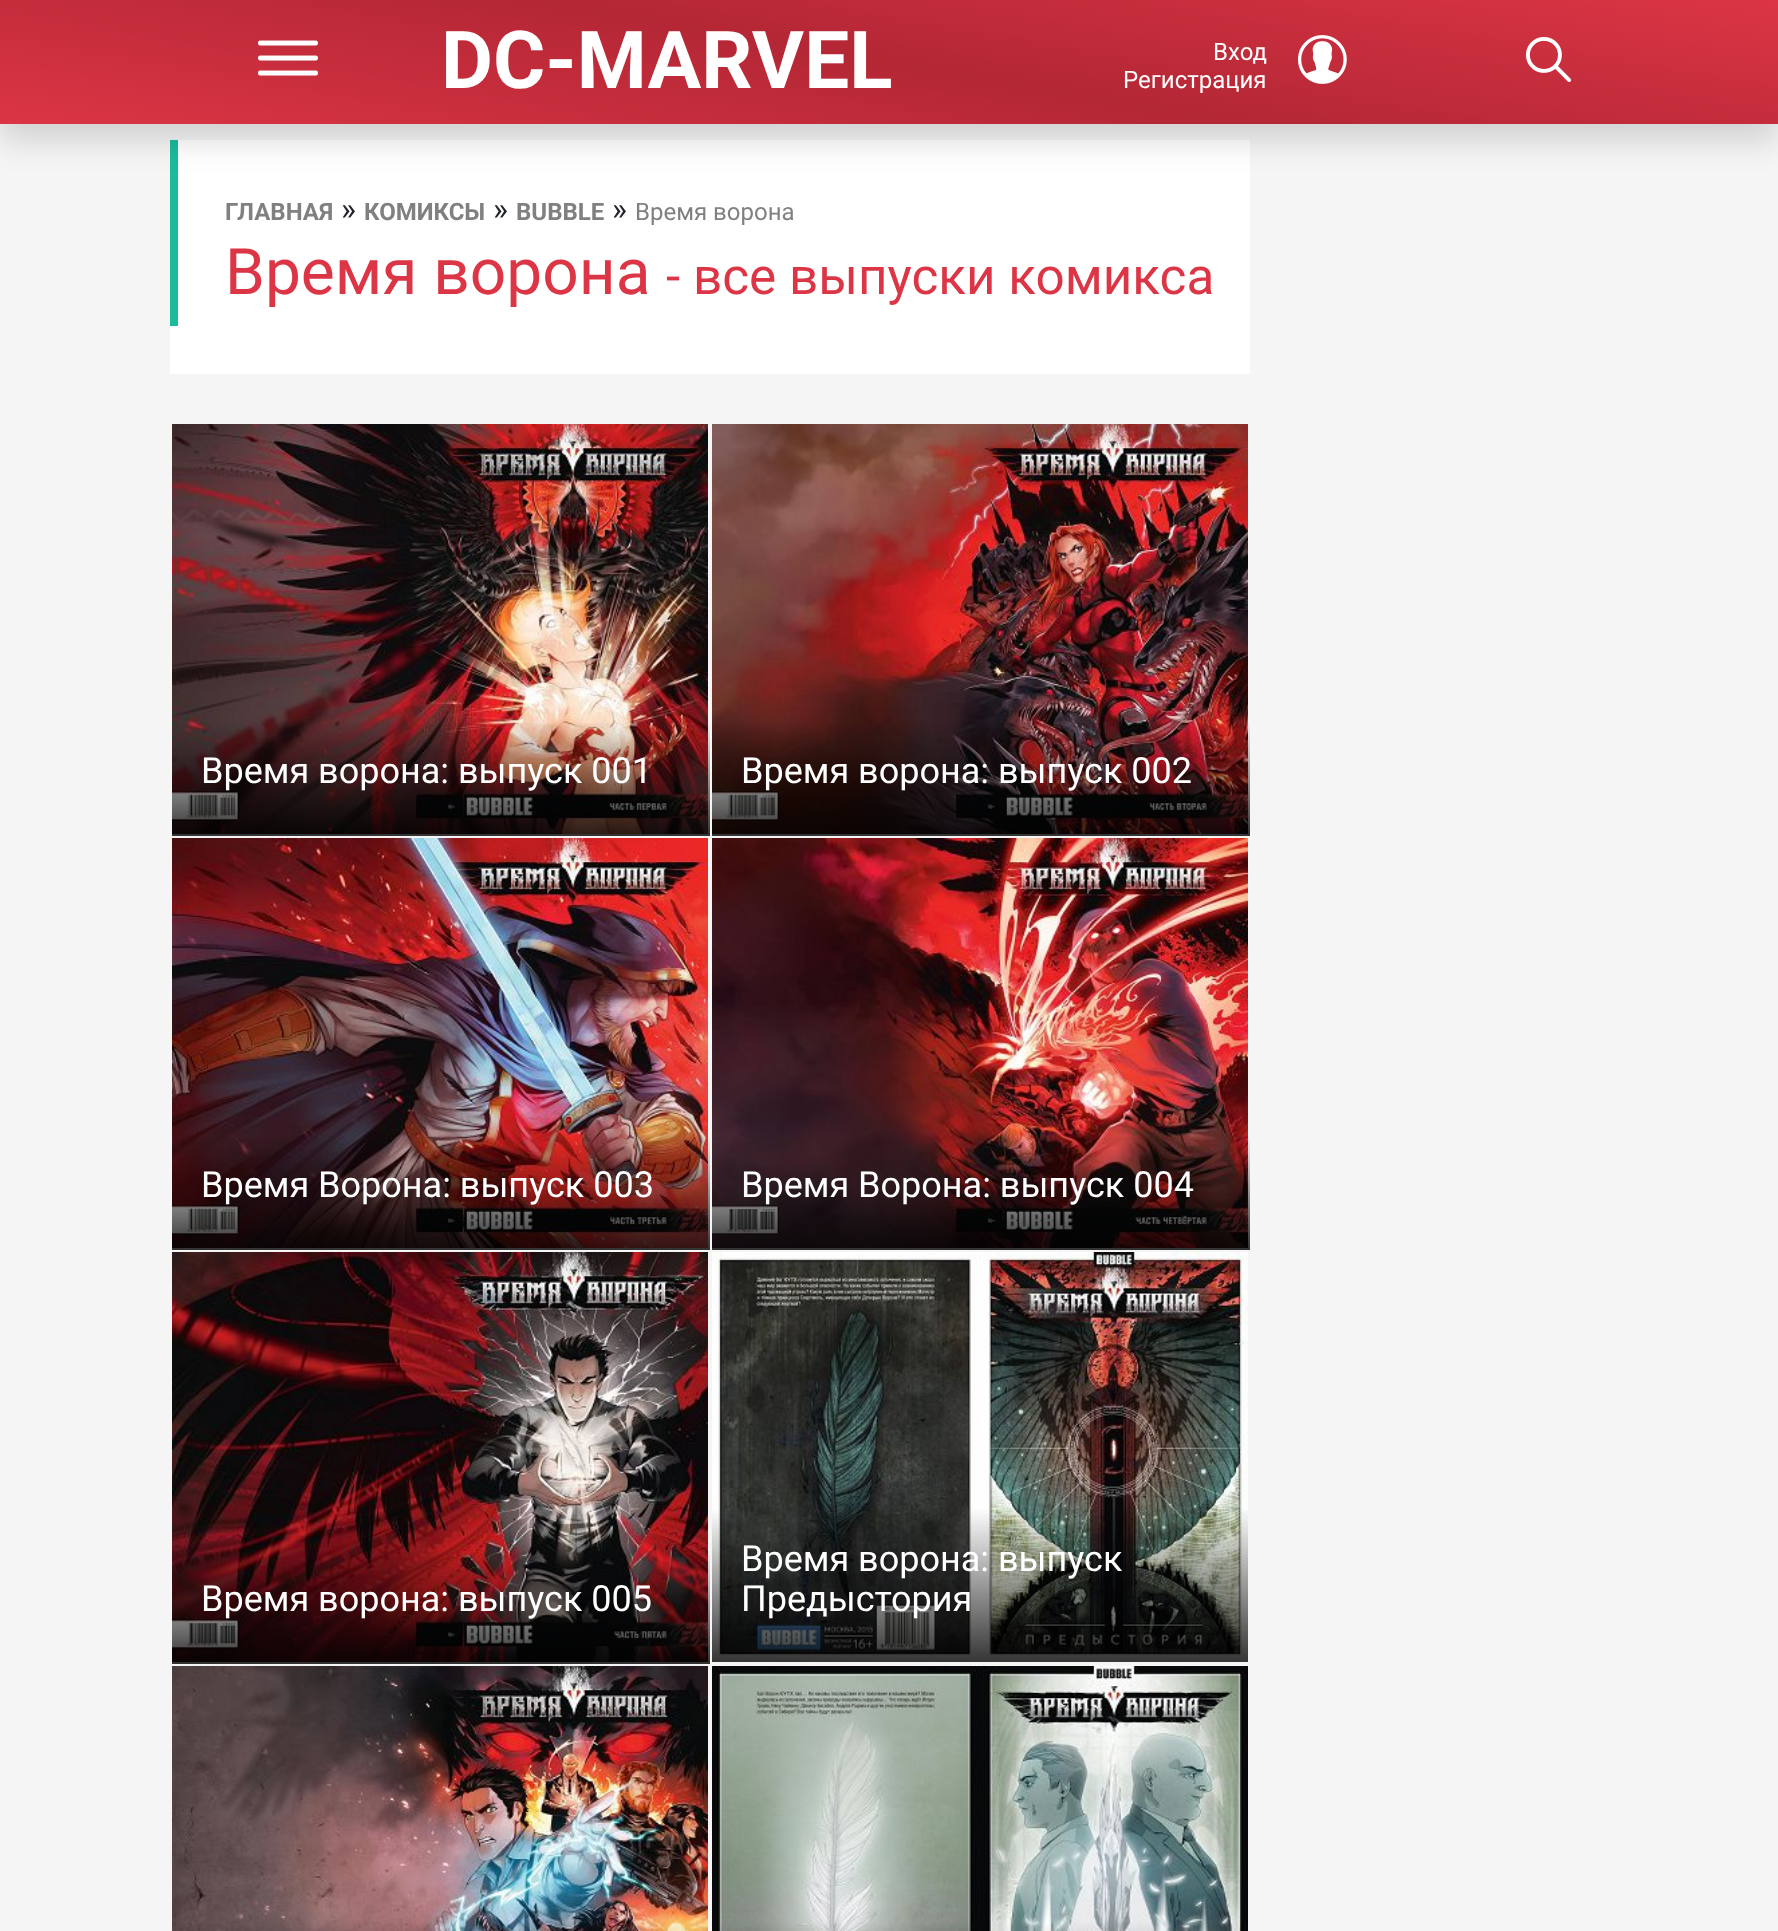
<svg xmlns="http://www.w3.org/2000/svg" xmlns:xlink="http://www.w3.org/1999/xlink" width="1778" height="1931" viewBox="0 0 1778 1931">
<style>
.cls-1{font:bold 80px Roboto;fill:#ffffff}
.cls-2{font:24px Roboto;fill:#ffffff}
.cls-3{font:bold 24px Roboto;fill:#808080}
.cls-4{font:32px Roboto;fill:#212529}
.cls-5{font:24px Roboto;fill:#808080}
.cls-6{font:64px Roboto;fill:#dc3545}
.cls-7{font:51.25px Roboto;fill:#dc3545}
.cls-8{font:36px Roboto;fill:#ffffff}
</style>
<defs>
<linearGradient id="g1" gradientUnits="userSpaceOnUse" x1="852" y1="274" x2="926" y2="-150"><stop offset="0" stop-color="#dc3545"/><stop offset="0.5" stop-color="#b42735"/><stop offset="1" stop-color="#dc3545"/></linearGradient>
<linearGradient id="g2" gradientUnits="userSpaceOnUse" x1="442" y1="836" x2="442" y2="720"><stop offset="0" stop-color="#000000" stop-opacity="0.8"/><stop offset="1" stop-color="#000000" stop-opacity="0"/></linearGradient>
<linearGradient id="g3" gradientUnits="userSpaceOnUse" x1="982" y1="836" x2="982" y2="720"><stop offset="0" stop-color="#000000" stop-opacity="0.8"/><stop offset="1" stop-color="#000000" stop-opacity="0"/></linearGradient>
<linearGradient id="g4" gradientUnits="userSpaceOnUse" x1="442" y1="1250" x2="442" y2="1134"><stop offset="0" stop-color="#000000" stop-opacity="0.8"/><stop offset="1" stop-color="#000000" stop-opacity="0"/></linearGradient>
<linearGradient id="g5" gradientUnits="userSpaceOnUse" x1="982" y1="1250" x2="982" y2="1134"><stop offset="0" stop-color="#000000" stop-opacity="0.8"/><stop offset="1" stop-color="#000000" stop-opacity="0"/></linearGradient>
<linearGradient id="g6" gradientUnits="userSpaceOnUse" x1="442" y1="1664" x2="442" y2="1548"><stop offset="0" stop-color="#000000" stop-opacity="0.8"/><stop offset="1" stop-color="#000000" stop-opacity="0"/></linearGradient>
</defs>
<rect width="100%" height="100%" fill="#f5f5f5"/>
<rect fill="#ffffff" x="178" y="140" width="1072" height="186"/>
<rect fill="#1abc9c" x="170" y="140" width="8" height="186"/>
<rect fill="#000000" fill-opacity="0.15" filter="blur(16px)" x="0" y="16" width="1778" height="124"/>
<rect fill="url(#g1)" x="0" y="0" width="1778" height="124"/>
<image xlink:href="image0.png" x="258" y="40" width="60" height="36"/>
<image xlink:href="image1.png" x="1298" y="35" width="49" height="49"/>
<image xlink:href="image2.png" x="1526" y="37" width="46" height="45"/>
<rect fill="#ffffff" x="170" y="326" width="1080" height="48"/>
<image xlink:href="image3.png" x="172" y="424" width="536" height="410"/>
<rect fill="url(#g2)" x="172" y="723" width="538" height="113"/>
<image xlink:href="image4.png" x="712" y="424" width="536" height="410"/>
<rect fill="url(#g3)" x="712" y="723" width="538" height="113"/>
<image xlink:href="image5.png" x="172" y="838" width="536" height="410"/>
<rect fill="url(#g4)" x="172" y="1137" width="538" height="113"/>
<image xlink:href="image6.png" x="712" y="838" width="536" height="410"/>
<rect fill="url(#g5)" x="712" y="1137" width="538" height="113"/>
<image xlink:href="image7.png" x="172" y="1252" width="536" height="410"/>
<rect fill="url(#g6)" x="172" y="1551" width="538" height="113"/>
<image xlink:href="image8.png" x="712" y="1252" width="536" height="410"/>
<image xlink:href="image9.png" x="172" y="1666" width="536" height="265"/>
<image xlink:href="image10.png" x="712" y="1666" width="536" height="265"/>
<text class="cls-1" x="441" y="88">DC-MARVEL</text>
<text class="cls-2" x="1213" y="60">Вход</text>
<text class="cls-2" x="1123" y="88">Регистрация</text>
<text class="cls-3" x="225" y="220">ГЛАВНАЯ</text>
<text class="cls-4" x="341" y="220">»</text>
<text class="cls-3" x="364" y="220">КОМИКСЫ</text>
<text class="cls-4" x="493" y="220">»</text>
<text class="cls-3" x="516" y="220">BUBBLE</text>
<text class="cls-4" x="612" y="220">»</text>
<text class="cls-5" x="635" y="220">Время ворона</text>
<text class="cls-6" x="225" y="294">Время ворона</text>
<text class="cls-7" x="666" y="294">- все выпуски комикса</text>
<text class="cls-8" x="201" y="783">Время ворона: выпуск 001</text>
<text class="cls-8" x="741" y="783">Время ворона: выпуск 002</text>
<text class="cls-8" x="201" y="1197">Время Ворона: выпуск 003</text>
<text class="cls-8" x="741" y="1197">Время Ворона: выпуск 004</text>
<text class="cls-8" x="201" y="1611">Время ворона: выпуск 005</text>
<text class="cls-8"><tspan x="741" y="1571">Время ворона: выпуск</tspan><tspan x="741" y="1611">Предыстория</tspan></text>
</svg>
